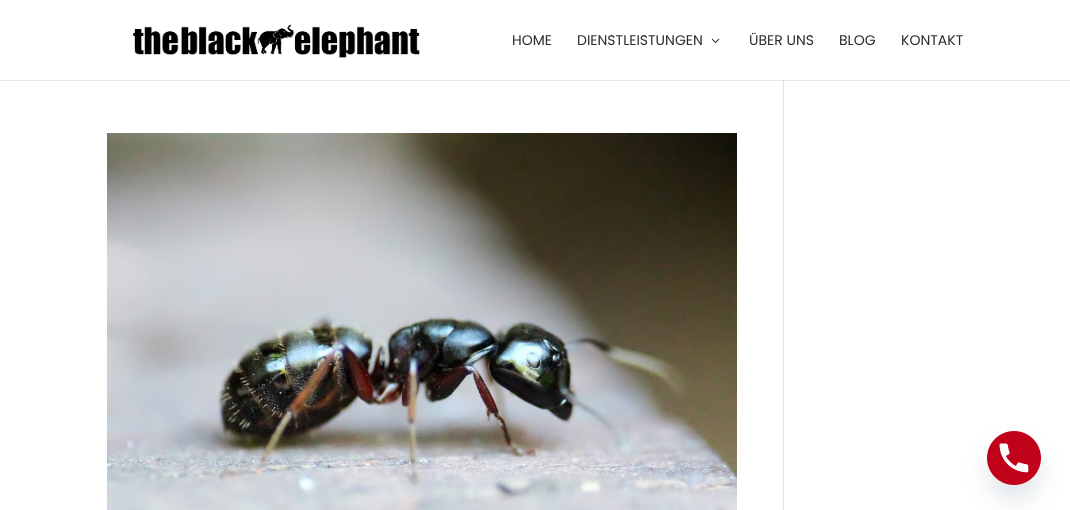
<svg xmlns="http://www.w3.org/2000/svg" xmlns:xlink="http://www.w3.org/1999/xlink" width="1070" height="510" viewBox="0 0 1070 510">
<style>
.cls-1{font:14px Poppins;fill:#2c2c2c}
</style>
<rect width="100%" height="100%" fill="#ffffff"/>
<rect fill="#e6e6e6" x="0" y="80" width="1070" height="1"/>
<rect fill="#e2e2e2" x="783" y="75" width="1" height="435"/>
<rect fill="#ffffff" x="783" y="75" width="1" height="5"/>
<image xlink:href="image0.png" x="133" y="24" width="287" height="34"/>
<image xlink:href="image1.png" x="711" y="38" width="9" height="5"/>
<image xlink:href="image2.png" x="107" y="133" width="630" height="377"/>
<rect fill="#cbcbcb" x="783" y="80" width="1" height="1"/>
<rect fill="#49687e" fill-opacity="0.16" filter="blur(12px)" x="987" y="447" width="54" height="54" rx="27"/>
<image xlink:href="image3.png" x="987" y="431" width="54" height="54"/>
<text class="cls-1" x="512" y="45">HOME</text>
<text class="cls-1" x="577" y="45">DIENSTLEISTUNGEN</text>
<text class="cls-1" x="749" y="45">ÜBER UNS</text>
<text class="cls-1" x="839" y="45">BLOG</text>
<text class="cls-1" x="901" y="45">KONTAKT</text>
</svg>
